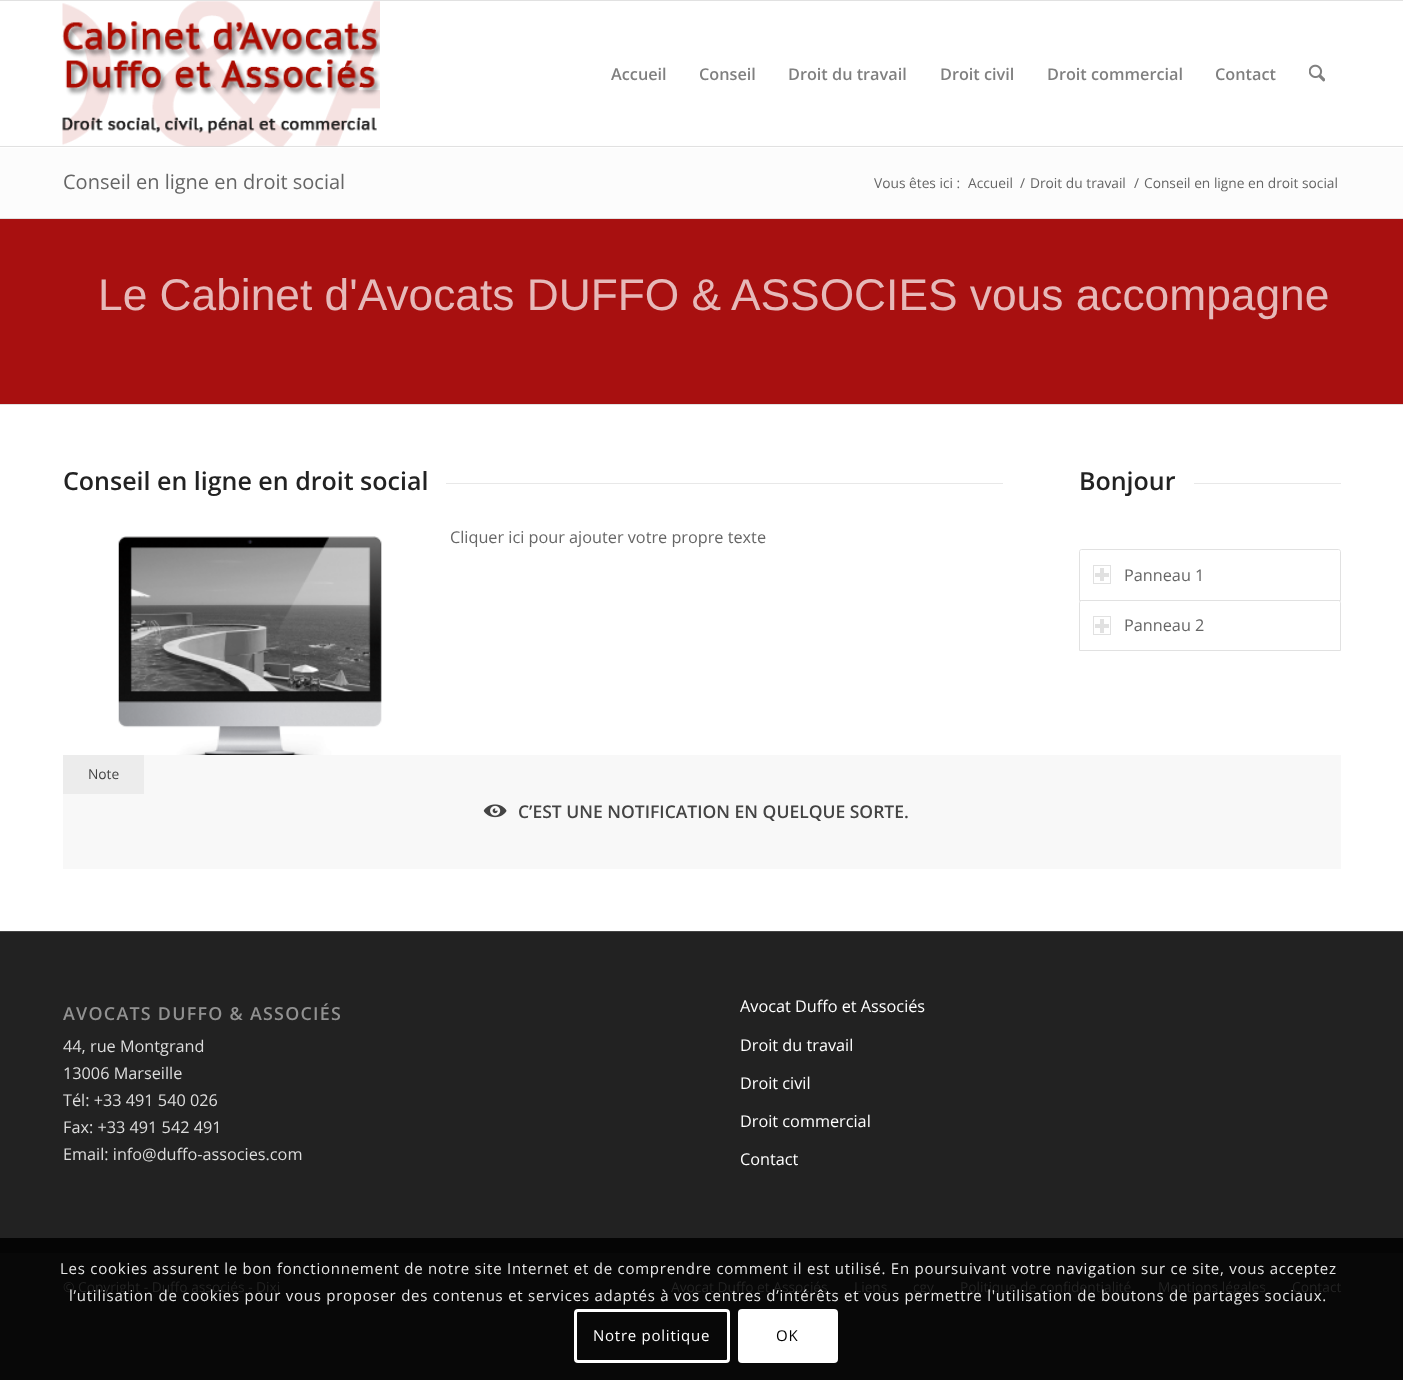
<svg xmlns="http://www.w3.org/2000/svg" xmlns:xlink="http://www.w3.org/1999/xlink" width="1403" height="1380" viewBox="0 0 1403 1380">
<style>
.cls-1{font:600 16.25px Open Sans;fill:#808080}
.cls-2{font:20px Open Sans;fill:#666666}
.cls-3{font:13.75px Open Sans;fill:#666666}
.cls-4{font:44.3px Liberation Sans;fill:#e6b9b9}
.cls-5{font:600 25px Open Sans;fill:#222222}
.cls-6{font:16.25px Open Sans;fill:#666666}
.cls-7{font:13.75px Open Sans;fill:#444444}
.cls-8{font:600 17.5px Open Sans;fill:#444444}
.cls-9{font:600 17.9px Open Sans;letter-spacing:1.25px;fill:#919191}
.cls-10{font:16.25px Open Sans;fill:#dddddd}
.cls-11{font:16.25px Open Sans;fill:#ffffff}
.cls-12{font:13.75px Open Sans;fill:#222222}
.cls-13{font:15px Open Sans;letter-spacing:0.75px;fill:#e6e6e6}
.cls-14{font:15px Open Sans;letter-spacing:0.75px;fill:#ffffff}
.cls-15{font:15px Open Sans;letter-spacing:0.75px;fill:#000000}
</style>
<rect width="100%" height="100%" fill="#080808"/>
<rect fill="#ffffff" x="0" y="405" width="1403" height="526"/>
<rect fill="#ffffff" x="0" y="1" width="1403" height="144"/>
<rect fill="#e1e1e1" x="0" y="0" width="1403" height="1"/>
<rect fill="#e1e1e1" x="0" y="146" width="1403" height="1"/>
<rect fill="#fefefe" x="0" y="145" width="1403" height="1"/>
<image xlink:href="image0.png" x="62" y="1" width="318" height="146"/>
<image xlink:href="image1.png" x="1309" y="64" width="16" height="18"/>
<rect fill="#fcfcfc" x="0" y="148" width="1403" height="70"/>
<rect fill="#ffffff" x="0" y="147" width="1403" height="1"/>
<rect fill="#e1e1e1" x="0" y="218" width="1403" height="1"/>
<rect fill="#a81010" x="0" y="219" width="1403" height="185"/>
<rect fill="#e1e1e1" x="0" y="404" width="1403" height="1"/>
<rect fill="#e8e8e8" x="446" y="483" width="557" height="1"/>
<image xlink:href="image2.png" x="118" y="536" width="264" height="219"/>
<rect fill="#e8e8e8" x="1194" y="483" width="147" height="1"/>
<path fill="none" stroke="#e1e1e1" d="M1081.5 549.5H1338.5C1339.5 549.5 1340.5 550.5 1340.5 551.5V600.5H1079.5V551.5C1079.5 550.5 1080.5 549.5 1081.5 549.5Z"/>
<rect fill="none" stroke="#e1e1e1" x="1093.5" y="565.5" width="17" height="18"/>
<rect fill="#e1e1e1" x="1100" y="568" width="4" height="13"/>
<rect fill="#e1e1e1" x="1095" y="573" width="14" height="4"/>
<path fill="#ffffff" stroke="#e1e1e1" d="M1081.5 600.5H1338.5C1339.5 600.5 1340.5 601.5 1340.5 602.5V650.5H1079.5V602.5C1079.5 601.5 1080.5 600.5 1081.5 600.5Z"/>
<rect fill="none" stroke="#e1e1e1" x="1093.5" y="616.5" width="17" height="18"/>
<rect fill="#e1e1e1" x="1100" y="619" width="4" height="14"/>
<rect fill="#e1e1e1" x="1095" y="624" width="14" height="4"/>
<rect fill="#f8f8f8" x="63" y="755" width="1278" height="114"/>
<rect fill="#ececec" x="63" y="755" width="81" height="39"/>
<image xlink:href="image3.png" x="483" y="804" width="24" height="14"/>
<rect fill="#222222" x="0" y="932" width="1403" height="306"/>
<rect fill="#050505" x="0" y="1238" width="1403" height="15"/>
<rect fill="#444444" x="0" y="931" width="1403" height="1"/>
<rect fill="none" stroke="#ffffff" stroke-width="3" x="575.5" y="1310.5" width="153" height="51" rx="2.5"/>
<rect fill="#ffffff" x="738" y="1309" width="100" height="54" rx="4"/>
<text class="cls-1" x="611" y="80">Accueil</text>
<text class="cls-1" x="699" y="80">Conseil</text>
<text class="cls-1" x="788" y="80">Droit du travail</text>
<text class="cls-1" x="940" y="80">Droit civil</text>
<text class="cls-1" x="1047" y="80">Droit commercial</text>
<text class="cls-1" x="1215" y="80">Contact</text>
<text class="cls-2" x="63" y="189">Conseil en ligne en droit social</text>
<text class="cls-3" x="874" y="188">Vous êtes ici :</text>
<text class="cls-3" x="968" y="188">Accueil</text>
<text class="cls-3" x="1020" y="188">/</text>
<text class="cls-3" x="1030" y="188">Droit du travail</text>
<text class="cls-3" x="1134" y="188">/</text>
<text class="cls-3" x="1144" y="188">Conseil en ligne en droit social</text>
<text class="cls-4" x="98" y="310">Le Cabinet d'Avocats DUFFO &amp; ASSOCIES vous accompagne</text>
<text class="cls-5" x="63" y="490">Conseil en ligne en droit social</text>
<text class="cls-6" x="450" y="543">Cliquer ici pour ajouter votre propre texte</text>
<text class="cls-5" x="1079" y="490">Bonjour</text>
<text class="cls-6" x="1124" y="581">Panneau 1</text>
<text class="cls-6" x="1124" y="631">Panneau 2</text>
<text class="cls-7" x="88" y="779">Note</text>
<text class="cls-8" x="518" y="818">C’EST UNE NOTIFICATION EN QUELQUE SORTE.</text>
<text class="cls-9" x="63" y="1020">AVOCATS DUFFO &amp; ASSOCIÉS</text>
<text class="cls-10"><tspan x="63" y="1052">44, rue Montgrand</tspan><tspan x="63" y="1079">13006 Marseille</tspan><tspan x="63" y="1106">Tél: +33 491 540 026</tspan><tspan x="63" y="1133">Fax: +33 491 542 491</tspan><tspan x="63" y="1160">Email: info@duffo-associes.com</tspan></text>
<text class="cls-11" x="740" y="1012">Avocat Duffo et Associés</text>
<text class="cls-11" x="740" y="1051">Droit du travail</text>
<text class="cls-11" x="740" y="1089">Droit civil</text>
<text class="cls-11" x="740" y="1127">Droit commercial</text>
<text class="cls-11" x="740" y="1165">Contact</text>
<text class="cls-12" x="63" y="1292">© Copyright - Duffo associés -</text>
<text class="cls-12" x="256" y="1292">Dixi</text>
<text class="cls-12" x="671" y="1292">Avocat Duffo et Associés</text>
<text class="cls-12" x="854" y="1292">Liens</text>
<text class="cls-12" x="913" y="1292">cgv</text>
<text class="cls-12" x="960" y="1292">Politique de confidentialité</text>
<text class="cls-12" x="1158" y="1292">Mentions légales</text>
<text class="cls-12" x="1292" y="1292">Contact</text>
<text class="cls-13" x="60" y="1274">Les cookies assurent le bon fonctionnement de notre site Internet et de comprendre comment il est utilisé. En poursuivant votre navigation sur ce site, vous acceptez</text>
<text class="cls-13" x="69" y="1301">l’utilisation de cookies pour vous proposer des contenus et services adaptés à vos centres d’intérêts et vous permettre l'utilisation de boutons de partages sociaux.</text>
<text class="cls-14" x="593" y="1341">Notre politique</text>
<text class="cls-15" x="776" y="1341">OK</text>
</svg>
